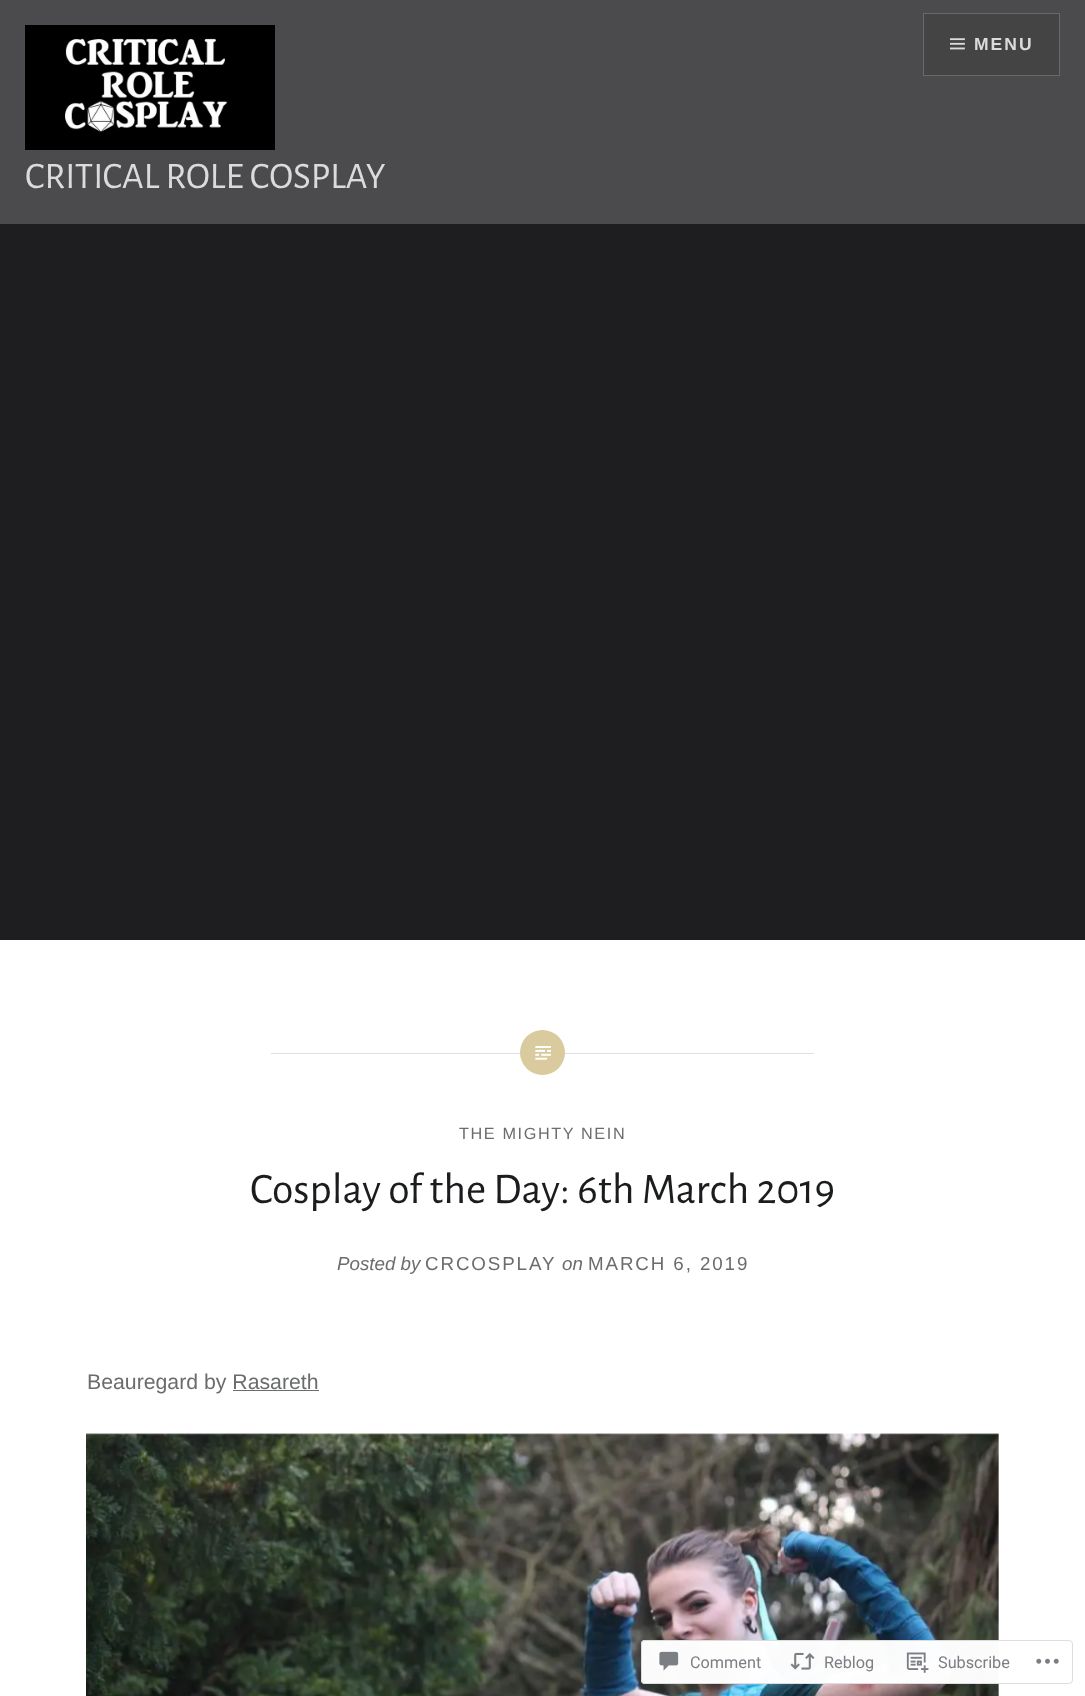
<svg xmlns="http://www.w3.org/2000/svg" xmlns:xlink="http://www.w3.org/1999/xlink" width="1085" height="1696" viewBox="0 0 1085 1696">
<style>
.cls-1{font:bold 17.5px Arimo;letter-spacing:2px;fill:#dadcdc}
.cls-2{font:37.5px Alegreya Sans;fill:#dadcdc}
.cls-3{font:16.25px Arimo;letter-spacing:1.6px;fill:#6a6c6e}
.cls-4{font:43.75px Alegreya Sans;fill:#1a1c1e}
.cls-5{font:italic 18.75px Arimo;fill:#6a6c6e}
.cls-6{font:18.75px Arimo;letter-spacing:1.9px;fill:#6a6c6e}
.cls-7{font:21.25px Arimo;fill:#6a6c6e}
.cls-8{font:16.25px Roboto;fill:#7b7f84}
</style>
<rect width="100%" height="100%" fill="#ffffff"/>
<rect fill="#4b4b4d" x="0" y="0" width="1085" height="224"/>
<rect fill="#444445" stroke="#69696a" x="923.5" y="13.5" width="136" height="62"/>
<image xlink:href="image0.png" x="950" y="38" width="15" height="12"/>
<image xlink:href="image1.png" x="25" y="25" width="250" height="125"/>
<rect fill="#1e1e20" x="0" y="224" width="1085" height="716"/>
<rect fill="#e0e0e0" x="271" y="1053" width="543" height="1"/>
<circle fill="#d9cb9e" cx="542.5" cy="1052.5" r="22.5"/>
<image xlink:href="image2.png" x="535" y="1046" width="16" height="14"/>
<rect fill="#6a6c6e" x="233" y="1390" width="86" height="1"/>
<image xlink:href="image3.png" x="86" y="1433" width="913" height="263"/>
<rect fill="#ffffff" fill-opacity="0.98" x="641" y="1640" width="432" height="44" rx="4"/>
<rect fill="none" stroke="#dcdcde" stroke-opacity="0.98" x="641.5" y="1640.5" width="431" height="43" rx="3.5"/>
<image xlink:href="image4.png" x="659" y="1651" width="20" height="20"/>
<image xlink:href="image5.png" x="790" y="1652" width="25" height="18"/>
<image xlink:href="image6.png" x="906" y="1652" width="23" height="21"/>
<image xlink:href="image7.png" x="1036" y="1658" width="23" height="6"/>
<text class="cls-1" x="974" y="50">MENU</text>
<text class="cls-2" x="25" y="188">CRITICAL ROLE COSPLAY</text>
<text class="cls-3" x="459" y="1139">THE MIGHTY NEIN</text>
<text class="cls-4" x="250" y="1203">Cosplay of the Day: 6th March 2019</text>
<text class="cls-5" x="337" y="1270">Posted by</text>
<text class="cls-6" x="425" y="1270">CRCOSPLAY</text>
<text class="cls-5" x="562" y="1270">on</text>
<text class="cls-6" x="588" y="1270">MARCH 6, 2019</text>
<text class="cls-7" x="87" y="1389">Beauregard by Rasareth</text>
<text class="cls-8" x="690" y="1668">Comment</text>
<text class="cls-8" x="824" y="1668">Reblog</text>
<text class="cls-8" x="938" y="1668">Subscribe</text>
</svg>
